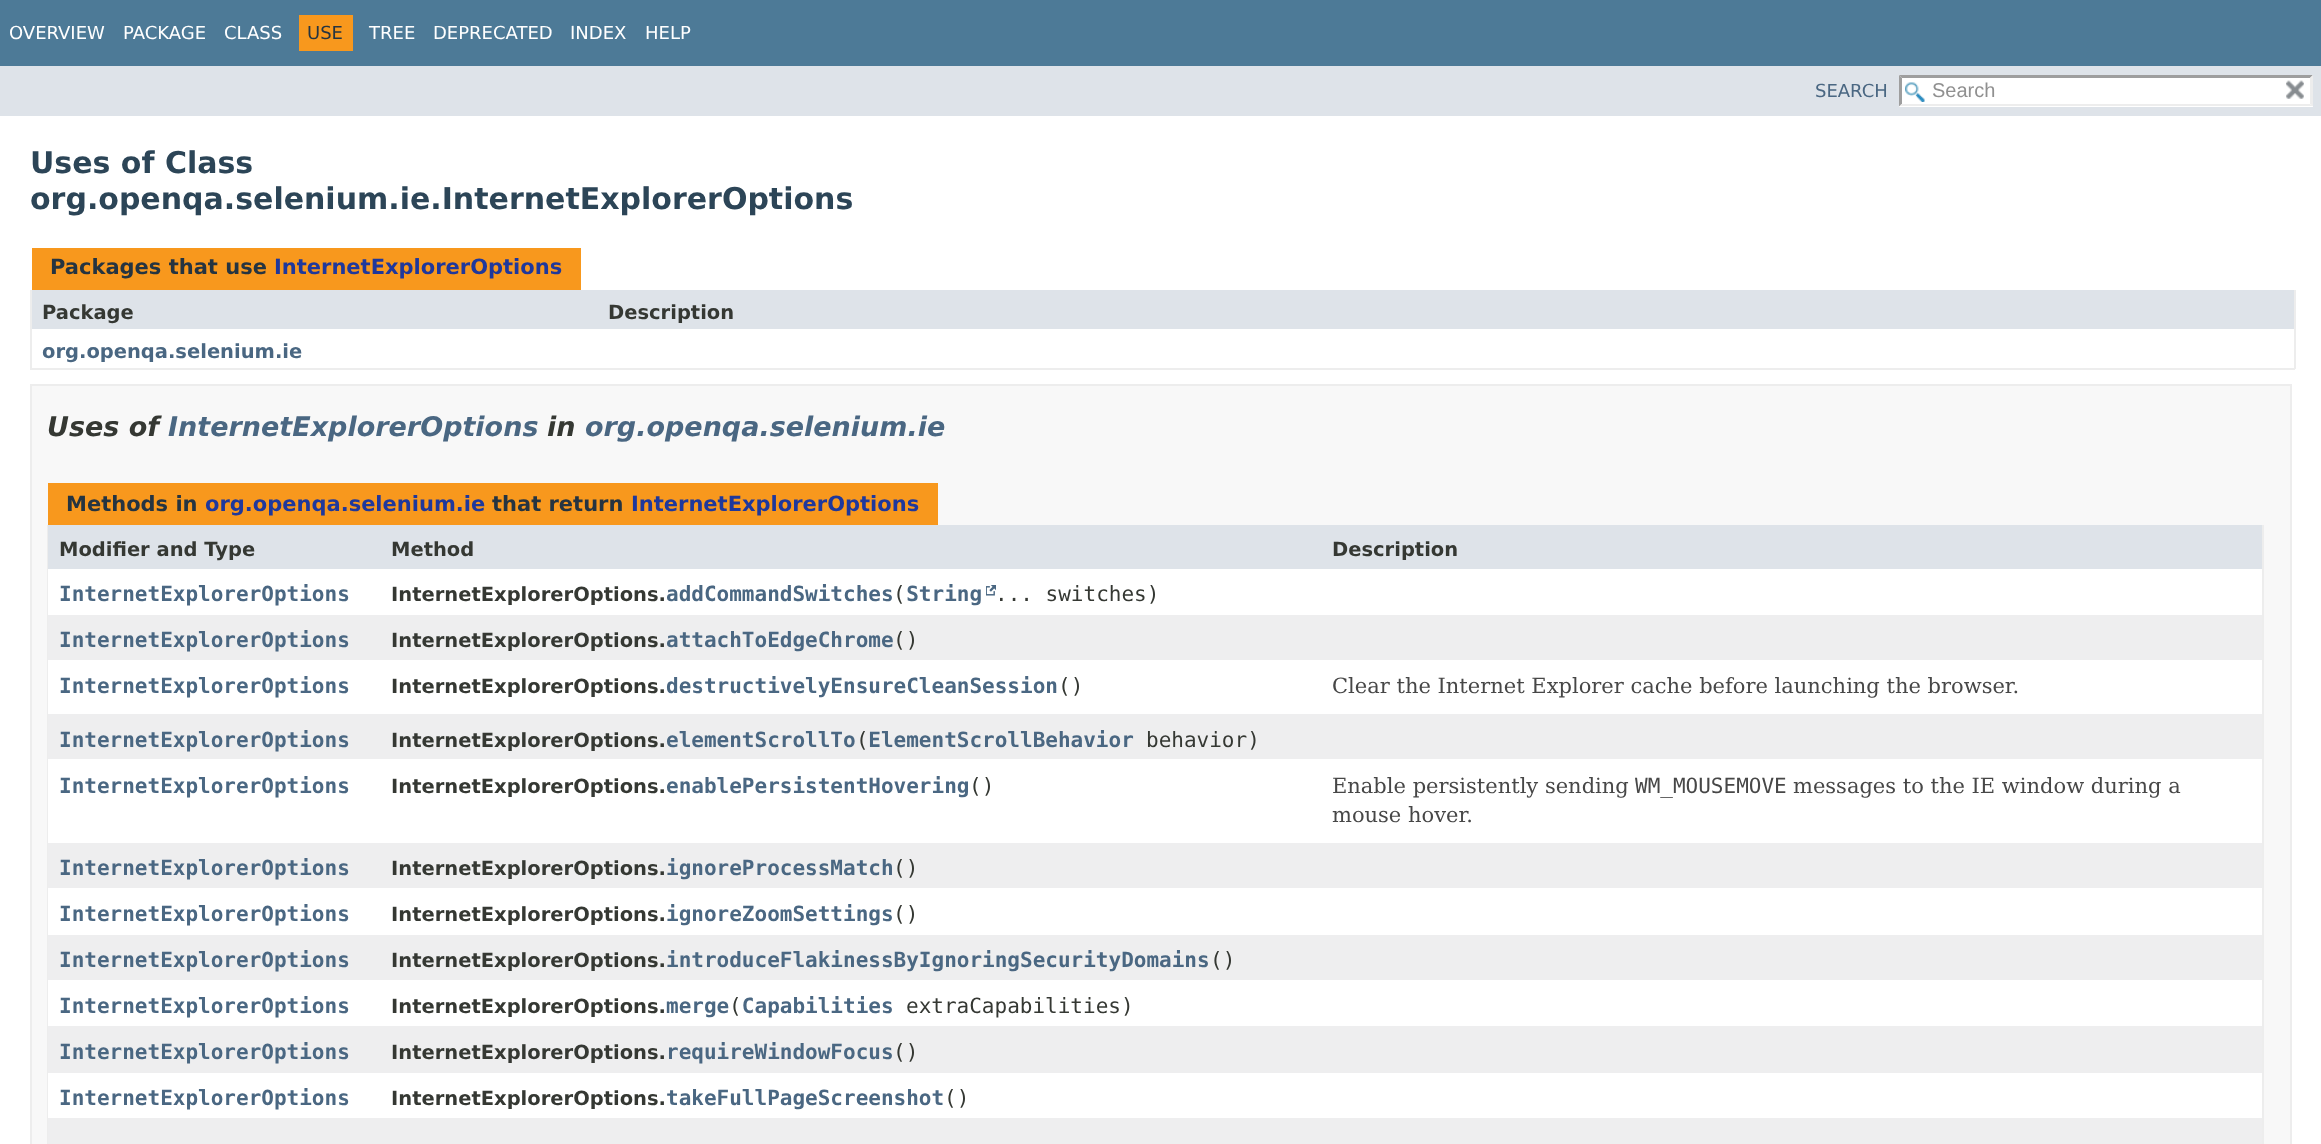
<svg xmlns="http://www.w3.org/2000/svg" xmlns:xlink="http://www.w3.org/1999/xlink" width="2321" height="1144" viewBox="0 0 2321 1144">
<style>
.cls-1{font:18px DejaVu Sans;fill:#ffffff}
.cls-2{font:18px DejaVu Sans;fill:#253441}
.cls-3{font:18px DejaVu Sans;fill:#4a6782}
.cls-4{font:20px Liberation Sans;fill:#909090}
.cls-5{font:bold 30px DejaVu Sans;fill:#2c4557}
.cls-6{font:bold 21px DejaVu Sans;fill:#253441}
.cls-7{font:bold 21px DejaVu Sans;fill:#1f389c}
.cls-8{font:bold 19.5px DejaVu Sans;fill:#353833}
.cls-9{font:bold 19.5px DejaVu Sans;fill:#4a6782}
.cls-10{font:italic bold 27px DejaVu Sans;fill:#353833}
.cls-11{font:italic bold 27px DejaVu Sans;fill:#4a6782}
.cls-12{font:bold 21px DejaVu Sans Mono;fill:#4a6782}
.cls-13{font:21px DejaVu Sans Mono;fill:#353833}
.cls-14{font:21px DejaVu Serif;fill:#474747}
.cls-15{font:21px DejaVu Sans Mono;fill:#474747}
</style>
<rect width="100%" height="100%" fill="#ffffff"/>
<rect fill="#4d7a97" x="0" y="0" width="2321" height="66"/>
<rect fill="#f8981d" x="299" y="15" width="54" height="36"/>
<rect fill="#dee3e9" x="0" y="66" width="2321" height="50"/>
<rect fill="#ffffff" x="1899" y="75" width="414" height="32"/>
<image xlink:href="image0.png" x="1905" y="82" width="20" height="20"/>
<path fill="#9e9e9e" d="M1899 75H2313L2310 78H1902Z"/>
<path fill="#ededed" d="M2313 75V106.5L2310 103.5V78Z"/>
<path fill="#ededed" d="M2313 106H1899L1902 104H2310Z"/>
<path fill="#9e9e9e" d="M1899 106.5V75L1902 78V103.5Z"/>
<image xlink:href="image1.png" x="2286" y="80" width="18" height="19"/>
<rect fill="#f8981d" x="32" y="248" width="549" height="42"/>
<rect fill="#ededed" x="2294" y="290" width="2" height="79"/>
<rect fill="#ededed" x="30" y="368" width="2265" height="2"/>
<rect fill="#ededed" x="30" y="290" width="2" height="79"/>
<rect fill="#dee3e9" x="32" y="290" width="2262" height="39"/>
<rect fill="#f8f8f8" stroke="#ededed" stroke-width="2" x="31" y="385" width="2260" height="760"/>
<rect fill="#f8981d" x="48" y="483" width="890" height="42"/>
<rect fill="#ededed" x="2262" y="525" width="2" height="619"/>
<rect fill="#ededed" x="47" y="525" width="1" height="619"/>
<rect fill="#dee3e9" x="48" y="525" width="2214" height="44"/>
<rect fill="#ffffff" x="48" y="569" width="2214" height="46"/>
<image xlink:href="image2.png" x="986" y="585" width="10" height="11"/>
<rect fill="#eeeeef" x="48" y="615" width="2214" height="45"/>
<rect fill="#ffffff" x="48" y="660" width="2214" height="54"/>
<rect fill="#eeeeef" x="48" y="714" width="2214" height="45"/>
<rect fill="#ffffff" x="48" y="759" width="2214" height="84"/>
<rect fill="#eeeeef" x="48" y="843" width="2214" height="45"/>
<rect fill="#ffffff" x="48" y="888" width="2214" height="47"/>
<rect fill="#eeeeef" x="48" y="935" width="2214" height="45"/>
<rect fill="#ffffff" x="48" y="980" width="2214" height="46"/>
<rect fill="#eeeeef" x="48" y="1026" width="2214" height="47"/>
<rect fill="#ffffff" x="48" y="1073" width="2214" height="45"/>
<rect fill="#eeeeef" x="48" y="1118" width="2214" height="26"/>
<text class="cls-1" x="9" y="39">OVERVIEW</text>
<text class="cls-1" x="123" y="39">PACKAGE</text>
<text class="cls-1" x="224" y="39">CLASS</text>
<text class="cls-2" x="307" y="39">USE</text>
<text class="cls-1" x="369" y="39">TREE</text>
<text class="cls-1" x="433" y="39">DEPRECATED</text>
<text class="cls-1" x="570" y="39">INDEX</text>
<text class="cls-1" x="645" y="39">HELP</text>
<text class="cls-3" x="1815" y="97">SEARCH</text>
<text class="cls-4" x="1932" y="97">Search</text>
<text class="cls-5"><tspan x="30" y="173">Uses of Class</tspan><tspan x="30" y="209">org.openqa.selenium.ie.InternetExplorerOptions</tspan></text>
<text class="cls-6" x="50" y="274">Packages that use</text>
<text class="cls-7" x="274" y="274">InternetExplorerOptions</text>
<text class="cls-8" x="42" y="319">Package</text>
<text class="cls-8" x="608" y="319">Description</text>
<text class="cls-9" x="42" y="358">org.openqa.selenium.ie</text>
<text class="cls-10" x="47" y="436">Uses of</text>
<text class="cls-11" x="168" y="436">InternetExplorerOptions</text>
<text class="cls-10" x="547" y="436">in</text>
<text class="cls-11" x="585" y="436">org.openqa.selenium.ie</text>
<text class="cls-6" x="66" y="511">Methods in</text>
<text class="cls-7" x="205" y="511">org.openqa.selenium.ie</text>
<text class="cls-6" x="492" y="511">that return</text>
<text class="cls-7" x="631" y="511">InternetExplorerOptions</text>
<text class="cls-8" x="59" y="556">Modifier and Type</text>
<text class="cls-8" x="391" y="556">Method</text>
<text class="cls-8" x="1332" y="556">Description</text>
<text class="cls-12" x="59" y="601">InternetExplorerOptions</text>
<text class="cls-8" x="391" y="601">InternetExplorerOptions.</text>
<text class="cls-12" x="666" y="601">addCommandSwitches String</text>
<text class="cls-13" x="893" y="601">(</text>
<text class="cls-13" x="995" y="601">... switches)</text>
<text class="cls-12" x="59" y="647">InternetExplorerOptions</text>
<text class="cls-8" x="391" y="647">InternetExplorerOptions.</text>
<text class="cls-12" x="666" y="647">attachToEdgeChrome</text>
<text class="cls-13" x="893" y="647">()</text>
<text class="cls-12" x="59" y="693">InternetExplorerOptions</text>
<text class="cls-8" x="391" y="693">InternetExplorerOptions.</text>
<text class="cls-12" x="666" y="693">destructivelyEnsureCleanSession</text>
<text class="cls-13" x="1058" y="693">()</text>
<text class="cls-14" x="1332" y="693">Clear the Internet Explorer cache before launching the browser.</text>
<text class="cls-12" x="59" y="747">InternetExplorerOptions</text>
<text class="cls-12" x="666" y="747">elementScrollTo ElementScrollBehavior</text>
<text class="cls-8" x="391" y="747">InternetExplorerOptions.</text>
<text class="cls-13" x="856" y="747">(</text>
<text class="cls-13" x="1146" y="747">behavior)</text>
<text class="cls-12" x="59" y="793">InternetExplorerOptions</text>
<text class="cls-8" x="391" y="793">InternetExplorerOptions.</text>
<text class="cls-12" x="666" y="793">enablePersistentHovering</text>
<text class="cls-13" x="969" y="793">()</text>
<text class="cls-14" x="1332" y="793">Enable persistently sending</text>
<text class="cls-15" x="1635" y="793">WM_MOUSEMOVE</text>
<text class="cls-14" x="1793" y="793">messages to the IE window during a</text>
<text class="cls-14" x="1332" y="822">mouse hover.</text>
<text class="cls-12" x="59" y="875">InternetExplorerOptions</text>
<text class="cls-8" x="391" y="875">InternetExplorerOptions.</text>
<text class="cls-12" x="666" y="875">ignoreProcessMatch</text>
<text class="cls-13" x="893" y="875">()</text>
<text class="cls-12" x="59" y="921">InternetExplorerOptions</text>
<text class="cls-8" x="391" y="921">InternetExplorerOptions.</text>
<text class="cls-12" x="666" y="921">ignoreZoomSettings</text>
<text class="cls-13" x="893" y="921">()</text>
<text class="cls-12" x="59" y="967">InternetExplorerOptions</text>
<text class="cls-8" x="391" y="967">InternetExplorerOptions.</text>
<text class="cls-12" x="666" y="967">introduceFlakinessByIgnoringSecurityDomains</text>
<text class="cls-13" x="1210" y="967">()</text>
<text class="cls-12" x="59" y="1013">InternetExplorerOptions</text>
<text class="cls-12" x="666" y="1013">merge Capabilities</text>
<text class="cls-13" x="906" y="1013">extraCapabilities)</text>
<text class="cls-8" x="391" y="1013">InternetExplorerOptions.</text>
<text class="cls-13" x="729" y="1013">(</text>
<text class="cls-12" x="59" y="1059">InternetExplorerOptions</text>
<text class="cls-8" x="391" y="1059">InternetExplorerOptions.</text>
<text class="cls-12" x="666" y="1059">requireWindowFocus</text>
<text class="cls-13" x="893" y="1059">()</text>
<text class="cls-12" x="59" y="1105">InternetExplorerOptions</text>
<text class="cls-8" x="391" y="1105">InternetExplorerOptions.</text>
<text class="cls-12" x="666" y="1105">takeFullPageScreenshot</text>
<text class="cls-13" x="944" y="1105">()</text>
</svg>
